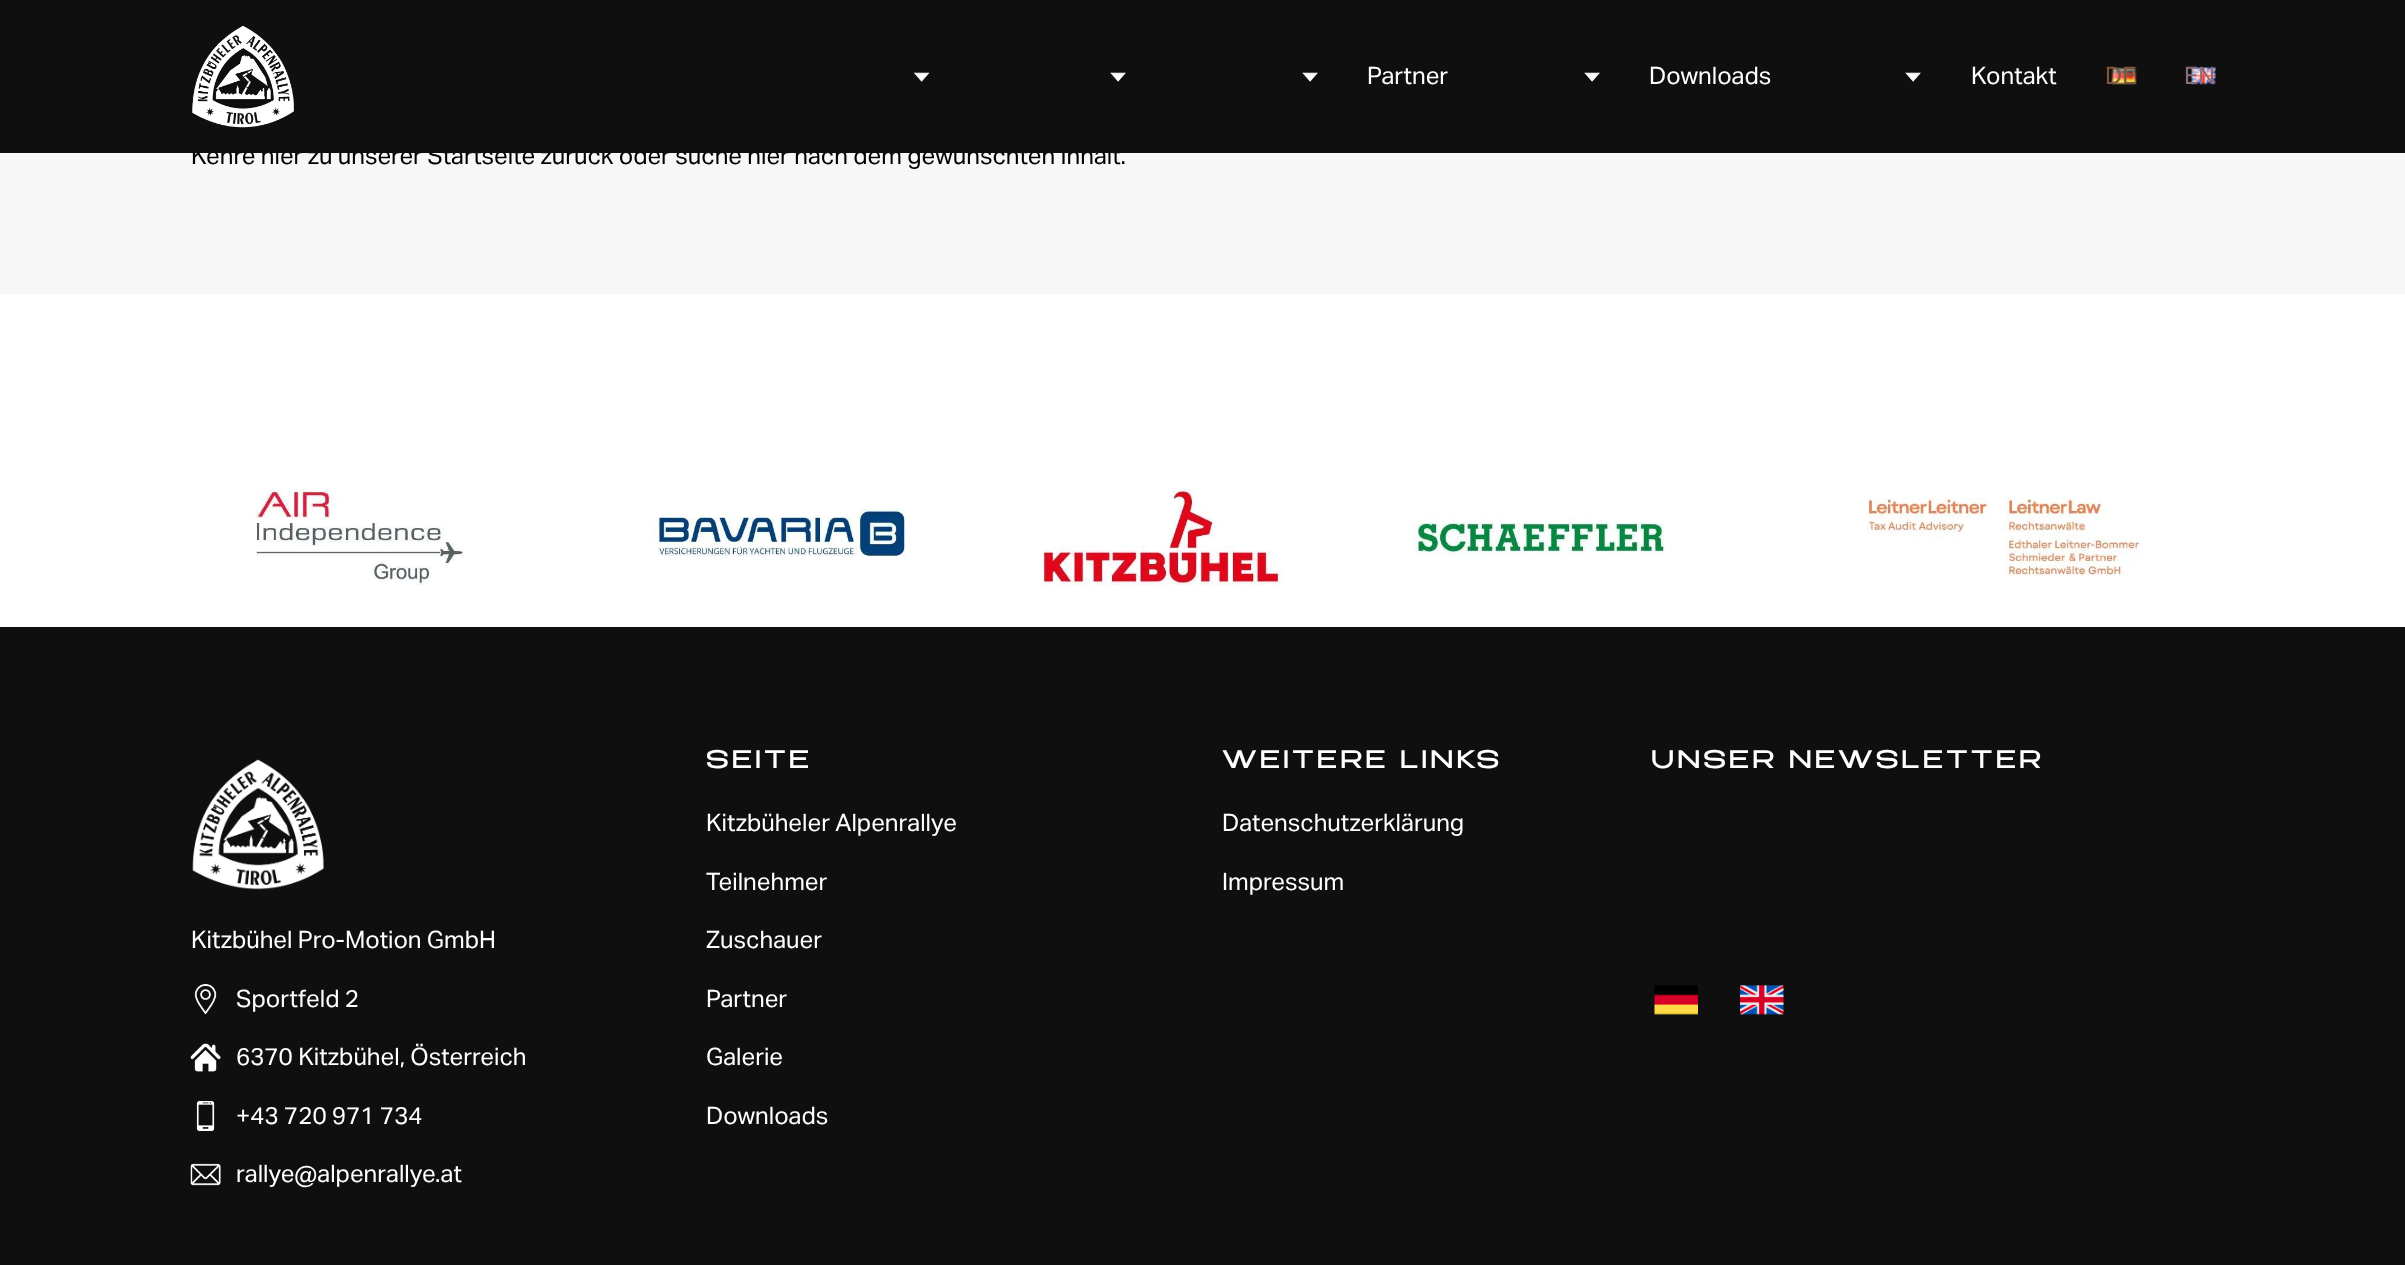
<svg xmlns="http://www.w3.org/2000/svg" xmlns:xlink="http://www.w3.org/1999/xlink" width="2405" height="1265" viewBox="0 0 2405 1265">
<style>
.cls-1{font:24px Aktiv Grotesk;fill:#000000}
.cls-2{font:24px Aktiv Grotesk;fill:#8a6a76}
.cls-3{font:24px Aktiv Grotesk;fill:#80553b}
.cls-4{font:24px Aktiv Grotesk;fill:#ffffff}
.cls-5{font:24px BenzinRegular;letter-spacing:3px;fill:#ffffff}
</style>
<rect width="100%" height="100%" fill="#f7f7f7"/>
<rect fill="#ffffff" x="0" y="294" width="2405" height="333"/>
<image xlink:href="image5.png" x="255" y="488" width="209" height="97"/>
<image xlink:href="image6.png" x="654" y="508" width="252" height="49"/>
<image xlink:href="image7.png" x="1043" y="488" width="240" height="98"/>
<image xlink:href="image8.png" x="1413" y="517" width="252" height="40"/>
<image xlink:href="image9.png" x="1866" y="497" width="277" height="79"/>
<rect fill="#0f0f0f" x="0" y="627" width="2405" height="638"/>
<image xlink:href="image10.png" x="192" y="759" width="132" height="131"/>
<image xlink:href="image11.png" x="194" y="984" width="23" height="30"/>
<image xlink:href="image12.png" x="1654" y="985" width="44" height="30"/>
<image xlink:href="image13.png" x="1740" y="985" width="44" height="30"/>
<image xlink:href="image14.png" x="190" y="1043" width="31" height="29"/>
<image xlink:href="image15.png" x="196" y="1101" width="19" height="30"/>
<image xlink:href="image16.png" x="190" y="1163" width="31" height="23"/>
<text class="cls-1" x="191" y="164">Kehre hier zu unserer Startseite zurück oder suche hier nach dem gewünschten Inhalt.</text>
<rect fill="#0f0f0f" x="0" y="0" width="2405" height="153"/>
<image xlink:href="image4.png" x="2191" y="67" width="25" height="18"/>
<text class="cls-2" x="2184" y="84">EN</text>
<image xlink:href="image3.png" x="2111" y="67" width="26" height="18"/>
<text class="cls-3" x="2105" y="84">DE</text>
<image xlink:href="image2.png" x="1905" y="72" width="16" height="10"/>
<image xlink:href="image2.png" x="1584" y="72" width="16" height="10"/>
<image xlink:href="image2.png" x="1302" y="72" width="16" height="10"/>
<image xlink:href="image2.png" x="1110" y="72" width="16" height="10"/>
<image xlink:href="image1.png" x="913" y="72" width="17" height="10"/>
<text class="cls-4" x="1971" y="84">Kontakt</text>
<text class="cls-4" x="1649" y="84">Downloads</text>
<text class="cls-4" x="1367" y="84">Partner</text>
<image xlink:href="image0.png" x="192" y="25" width="102" height="103"/>
<text class="cls-5" x="706" y="768">SEITE</text>
<text class="cls-5" x="1222" y="768">WEITERE LINKS</text>
<text class="cls-5" x="1651" y="768">UNSER NEWSLETTER</text>
<text class="cls-4" x="706" y="831">Kitzbüheler Alpenrallye</text>
<text class="cls-4" x="1222" y="831">Datenschutzerklärung</text>
<text class="cls-4" x="706" y="890">Teilnehmer</text>
<text class="cls-4" x="1222" y="890">Impressum</text>
<text class="cls-4" x="191" y="948">Kitzbühel Pro-Motion GmbH</text>
<text class="cls-4" x="706" y="948">Zuschauer</text>
<text class="cls-4" x="236" y="1007">Sportfeld 2</text>
<text class="cls-4" x="706" y="1007">Partner</text>
<text class="cls-4" x="236" y="1065">6370 Kitzbühel, Österreich</text>
<text class="cls-4" x="706" y="1065">Galerie</text>
<text class="cls-4" x="236" y="1124">+43 720 971 734</text>
<text class="cls-4" x="706" y="1124">Downloads</text>
<text class="cls-4" x="236" y="1182">rallye@alpenrallye.at</text>
</svg>
